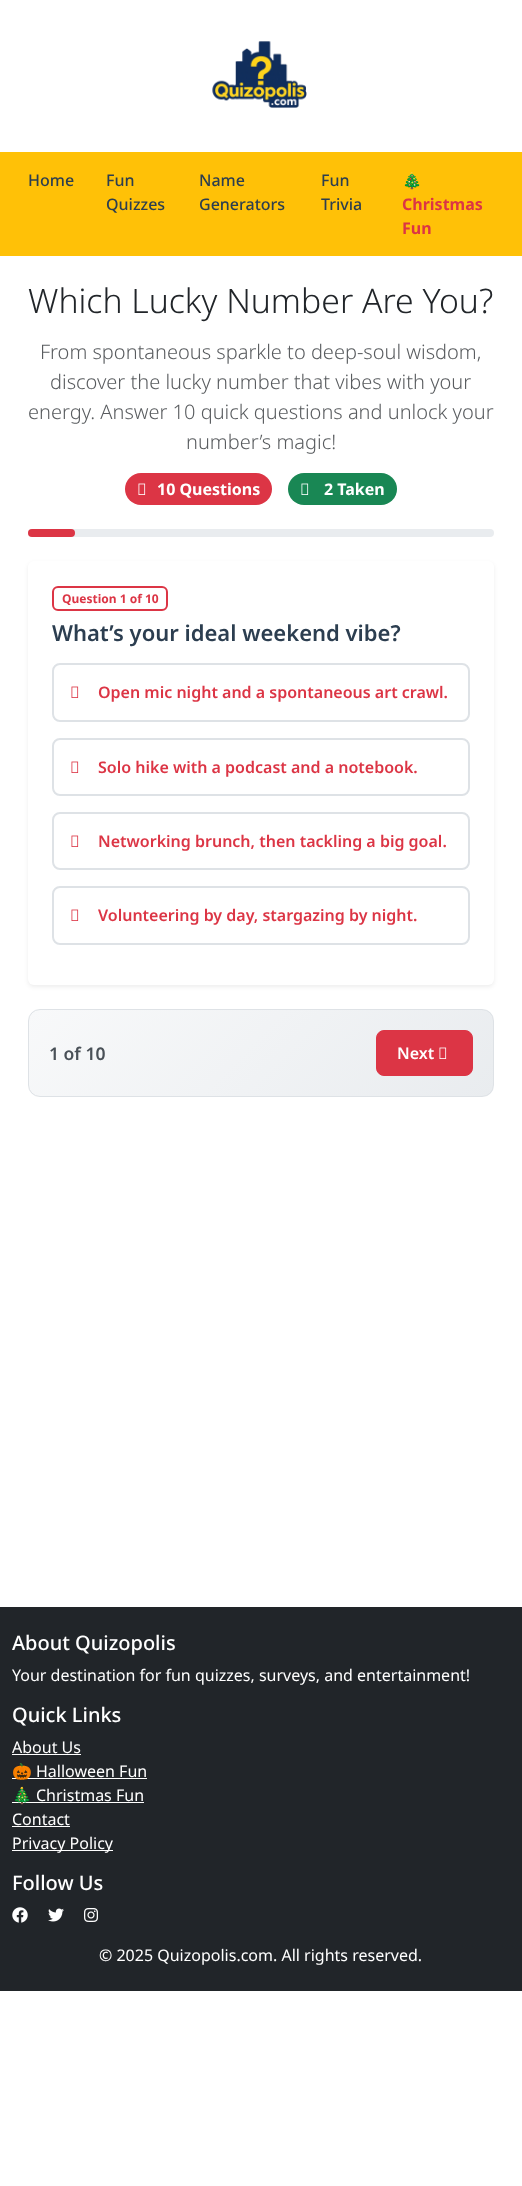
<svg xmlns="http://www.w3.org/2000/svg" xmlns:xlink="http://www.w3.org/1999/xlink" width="522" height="2186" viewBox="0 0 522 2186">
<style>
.cls-1{font:500 16px Noto Sans;fill:#2c3e50}
.cls-2{font:bold 16px Noto Color Emoji;fill:#dc3545}
.cls-3{font:bold 16px Noto Sans;fill:#dc3545}
.cls-4{font:300 33.75px Noto Sans;fill:#212529}
.cls-5{font:300 20px Noto Sans;fill:#595c5f}
.cls-6{font:bold 16px Noto Sans;fill:#ffffff}
.cls-7{font:bold 12px Noto Sans;fill:#dc3545}
.cls-8{font:600 22px Noto Sans;fill:#2c3e50}
.cls-9{font:600 16px Noto Sans;fill:#dc3545}
.cls-10{font:600 17.5px Noto Sans;fill:#495057}
.cls-11{font:600 16px Noto Sans;fill:#ffffff}
.cls-12{font:500 20px Noto Sans;fill:#ffffff}
.cls-13{font:16px Noto Sans;fill:#ffffff}
.cls-14{font:16px Noto Color Emoji;fill:#ffffff}
</style>
<defs>
<clipPath id="clip1"><rect x="28" y="1009" width="466" height="88" rx="12"/></clipPath>
<linearGradient id="g1" gradientUnits="userSpaceOnUse" x1="123" y1="916" x2="399" y2="1191"><stop offset="0" stop-color="#f8f9fa"/><stop offset="1" stop-color="#e9ecef"/></linearGradient>
</defs>
<rect width="100%" height="100%" fill="#ffffff"/>
<image xlink:href="image0.png" x="212" y="41" width="95" height="67"/>
<rect fill="#ffc107" x="0" y="152" width="522" height="104"/>
<rect fill="#dc3545" x="125" y="473" width="147" height="32" rx="16"/>
<image xlink:href="image1.png" x="138" y="483" width="8" height="12"/>
<rect fill="#198754" x="288" y="473" width="109" height="32" rx="16"/>
<image xlink:href="image2.png" x="301" y="483" width="8" height="12"/>
<rect fill="#e9ecef" x="28" y="529" width="466" height="8" rx="4"/>
<rect fill="#dc3545" x="28" y="529" width="47" height="8" rx="4"/>
<rect fill="#000000" fill-opacity="0.07" filter="blur(2px)" x="28" y="563" width="466" height="424" rx="6"/>
<rect fill="#ffffff" x="28" y="561" width="466" height="424" rx="6"/>
<rect fill="none" stroke="#dc3545" stroke-width="2" x="53" y="587" width="114" height="23" rx="5"/>
<rect fill="none" stroke="#dee2e6" stroke-width="2" x="53" y="664" width="416" height="57" rx="7"/>
<image xlink:href="image3.png" x="71" y="686" width="8" height="12"/>
<rect fill="none" stroke="#dee2e6" stroke-width="2" x="53" y="739" width="416" height="56" rx="7"/>
<image xlink:href="image3.png" x="71" y="761" width="8" height="12"/>
<rect fill="none" stroke="#dee2e6" stroke-width="2" x="53" y="813" width="416" height="56" rx="7"/>
<image xlink:href="image3.png" x="71" y="835" width="8" height="12"/>
<rect fill="none" stroke="#dee2e6" stroke-width="2" x="53" y="887" width="416" height="57" rx="7"/>
<image xlink:href="image3.png" x="71" y="909" width="8" height="12"/>
<g clip-path="url(#clip1)">
<rect fill="url(#g1)" x="29" y="1010" width="464" height="86"/>
</g>
<rect fill="none" stroke="#dee2e6" x="28.5" y="1009.5" width="465" height="87" rx="11.5"/>
<rect fill="#dc3545" stroke="#dc3545" x="376.5" y="1030.5" width="96" height="45" rx="7.5"/>
<image xlink:href="image1.png" x="439" y="1047" width="8" height="12"/>
<rect fill="#212529" x="0" y="1607" width="522" height="384"/>
<rect fill="#ffffff" x="12" y="1754" width="69" height="1"/>
<rect fill="#ffffff" x="12" y="1778" width="135" height="1"/>
<rect fill="#ffffff" x="12" y="1802" width="132" height="1"/>
<rect fill="#ffffff" x="12" y="1826" width="58" height="1"/>
<rect fill="#ffffff" x="12" y="1850" width="101" height="1"/>
<image xlink:href="image4.png" x="12" y="1907" width="16" height="16"/>
<image xlink:href="image5.png" x="48" y="1908" width="16" height="14"/>
<image xlink:href="image6.png" x="84" y="1908" width="14" height="14"/>
<text class="cls-1" x="28" y="186">Home</text>
<text class="cls-1"><tspan x="106" y="186">Fun</tspan><tspan x="106" y="210">Quizzes</tspan></text>
<text class="cls-1"><tspan x="199" y="186">Name</tspan><tspan x="199" y="210">Generators</tspan></text>
<text class="cls-1"><tspan x="321" y="186">Fun</tspan><tspan x="321" y="210">Trivia</tspan></text>
<text class="cls-2" x="402" y="186">🎄</text>
<text class="cls-3"><tspan x="402" y="210">Christmas</tspan><tspan x="402" y="234">Fun</tspan></text>
<text class="cls-4" x="28" y="313">Which Lucky Number Are You?</text>
<text class="cls-5" x="40" y="359">From spontaneous sparkle to deep-soul wisdom,</text>
<text class="cls-5" x="50" y="389">discover the lucky number that vibes with your</text>
<text class="cls-5" x="28" y="419">energy. Answer 10 quick questions and unlock your</text>
<text class="cls-5" x="186" y="449">number’s magic!</text>
<text class="cls-6" x="157" y="495">10 Questions</text>
<text class="cls-6" x="324" y="495">2 Taken</text>
<text class="cls-7" x="62" y="603">Question 1 of 10</text>
<text class="cls-8" x="52" y="641">What’s your ideal weekend vibe?</text>
<text class="cls-9" x="98" y="698">Open mic night and a spontaneous art crawl.</text>
<text class="cls-9" x="98" y="773">Solo hike with a podcast and a notebook.</text>
<text class="cls-9" x="98" y="847">Networking brunch, then tackling a big goal.</text>
<text class="cls-9" x="98" y="921">Volunteering by day, stargazing by night.</text>
<text class="cls-10" x="49" y="1060">1 of 10</text>
<text class="cls-11" x="397" y="1059">Next</text>
<text class="cls-12" x="12" y="1650">About Quizopolis</text>
<text class="cls-13" x="12" y="1681">Your destination for fun quizzes, surveys, and entertainment!</text>
<text class="cls-12" x="12" y="1722">Quick Links</text>
<text class="cls-13" x="12" y="1753">About Us</text>
<text class="cls-14" x="12" y="1777">🎃</text>
<text class="cls-13" x="36" y="1777">Halloween Fun</text>
<text class="cls-14" x="12" y="1801">🎄</text>
<text class="cls-13" x="36" y="1801">Christmas Fun</text>
<text class="cls-13"><tspan x="12" y="1825">Contact</tspan><tspan x="12" y="1849">Privacy Policy</tspan></text>
<text class="cls-12" x="12" y="1890">Follow Us</text>
<text class="cls-13" x="99" y="1961">© 2025 Quizopolis.com. All rights reserved.</text>
</svg>
